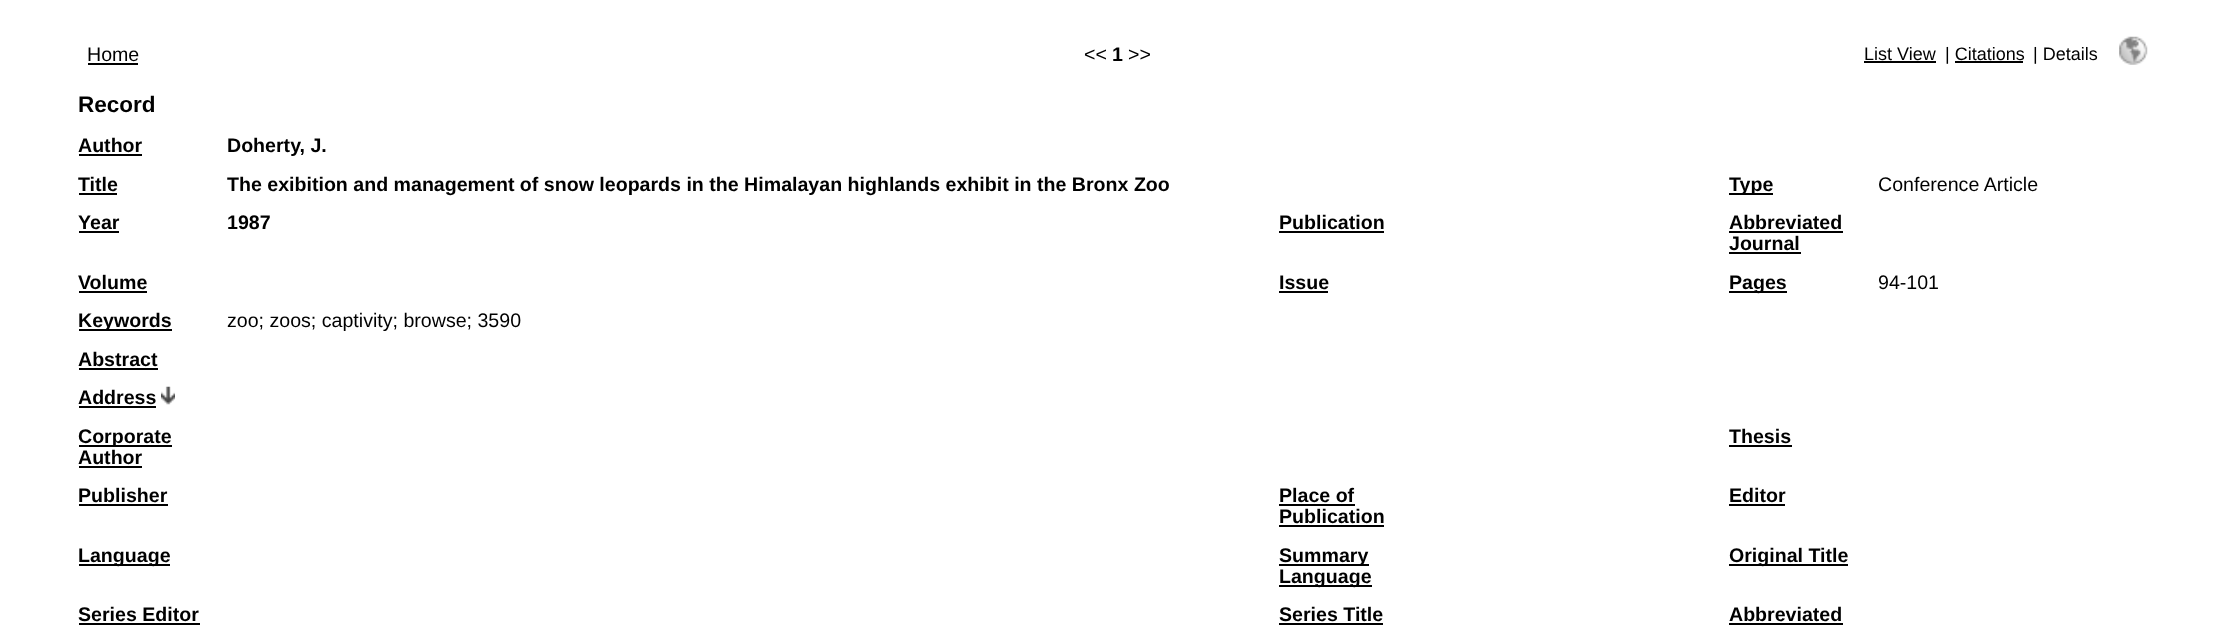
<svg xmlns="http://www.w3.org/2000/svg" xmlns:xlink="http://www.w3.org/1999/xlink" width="2234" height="629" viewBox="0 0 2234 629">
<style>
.cls-1{font:19.6px Liberation Sans;fill:#000000}
.cls-2{font:bold 19.6px Liberation Sans;fill:#000000}
.cls-3{font:18px Liberation Sans;fill:#000000}
.cls-4{font:bold 22.5px Liberation Sans;fill:#000000}
</style>
<rect width="100%" height="100%" fill="#ffffff"/>
<rect fill="#000000" x="88" y="63" width="50" height="2"/>
<rect fill="#000000" x="1864" y="61" width="72" height="2"/>
<rect fill="#000000" x="1955" y="61" width="68" height="2"/>
<image xlink:href="image0.png" x="2119" y="36" width="29" height="29"/>
<rect fill="#000000" x="79" y="154" width="63" height="2"/>
<rect fill="#000000" x="79" y="193" width="38" height="2"/>
<rect fill="#000000" x="1729" y="193" width="44" height="2"/>
<rect fill="#000000" x="79" y="231" width="40" height="2"/>
<rect fill="#000000" x="1279" y="231" width="105" height="2"/>
<rect fill="#000000" x="1729" y="231" width="114" height="2"/>
<rect fill="#000000" x="1729" y="252" width="72" height="2"/>
<rect fill="#000000" x="79" y="291" width="68" height="2"/>
<rect fill="#000000" x="1279" y="291" width="49" height="2"/>
<rect fill="#000000" x="1729" y="291" width="58" height="2"/>
<rect fill="#000000" x="79" y="329" width="93" height="2"/>
<rect fill="#000000" x="79" y="368" width="79" height="2"/>
<rect fill="#000000" x="79" y="406" width="77" height="2"/>
<image xlink:href="image1.png" x="161" y="386" width="14" height="19"/>
<rect fill="#000000" x="79" y="445" width="93" height="2"/>
<rect fill="#000000" x="79" y="466" width="63" height="2"/>
<rect fill="#000000" x="1729" y="445" width="63" height="2"/>
<rect fill="#000000" x="79" y="504" width="89" height="2"/>
<rect fill="#000000" x="1279" y="504" width="76" height="2"/>
<rect fill="#000000" x="1279" y="525" width="105" height="2"/>
<rect fill="#000000" x="1729" y="504" width="56" height="2"/>
<rect fill="#000000" x="79" y="564" width="91" height="2"/>
<rect fill="#000000" x="1279" y="564" width="90" height="2"/>
<rect fill="#000000" x="1279" y="585" width="93" height="2"/>
<rect fill="#000000" x="1729" y="564" width="119" height="2"/>
<rect fill="#000000" x="79" y="623" width="121" height="2"/>
<rect fill="#000000" x="1279" y="623" width="104" height="2"/>
<rect fill="#000000" x="1729" y="623" width="114" height="2"/>
<text class="cls-1" x="87" y="61">Home</text>
<text class="cls-1" x="1084" y="61">&lt;&lt;</text>
<text class="cls-2" x="1112" y="61">1</text>
<text class="cls-1" x="1128" y="61">&gt;&gt;</text>
<text class="cls-3" x="1864" y="60">List View</text>
<text class="cls-3" x="1945" y="60">| Citations</text>
<text class="cls-3" x="2033" y="60">| Details</text>
<text class="cls-4" x="78" y="112">Record</text>
<text class="cls-2" x="78" y="152">Author</text>
<text class="cls-2" x="227" y="152">Doherty, J.</text>
<text class="cls-2" x="78" y="191">Title</text>
<text class="cls-2" x="227" y="191">The exibition and management of snow leopards in the Himalayan highlands exhibit in the Bronx Zoo</text>
<text class="cls-2" x="1729" y="191">Type</text>
<text class="cls-1" x="1878" y="191">Conference Article</text>
<text class="cls-2" x="78" y="229">Year</text>
<text class="cls-2" x="227" y="229">1987</text>
<text class="cls-2" x="1279" y="229">Publication</text>
<text class="cls-2"><tspan x="1729" y="229">Abbreviated</tspan><tspan x="1729" y="250">Journal</tspan></text>
<text class="cls-2" x="78" y="289">Volume</text>
<text class="cls-2" x="1279" y="289">Issue</text>
<text class="cls-2" x="1729" y="289">Pages</text>
<text class="cls-1" x="1878" y="289">94-101</text>
<text class="cls-2" x="78" y="327">Keywords</text>
<text class="cls-1" x="227" y="327">zoo; zoos; captivity; browse; 3590</text>
<text class="cls-2"><tspan x="78" y="366">Abstract</tspan><tspan x="78" y="404">Address</tspan><tspan x="78" y="443">Corporate</tspan><tspan x="78" y="464">Author</tspan></text>
<text class="cls-2" x="1729" y="443">Thesis</text>
<text class="cls-2" x="78" y="502">Publisher</text>
<text class="cls-2"><tspan x="1279" y="502">Place of</tspan><tspan x="1279" y="523">Publication</tspan></text>
<text class="cls-2" x="1729" y="502">Editor</text>
<text class="cls-2" x="78" y="562">Language</text>
<text class="cls-2"><tspan x="1279" y="562">Summary</tspan><tspan x="1279" y="583">Language</tspan></text>
<text class="cls-2" x="1729" y="562">Original Title</text>
<text class="cls-2" x="78" y="621">Series Editor</text>
<text class="cls-2" x="1279" y="621">Series Title</text>
<text class="cls-2" x="1729" y="621">Abbreviated</text>
</svg>
